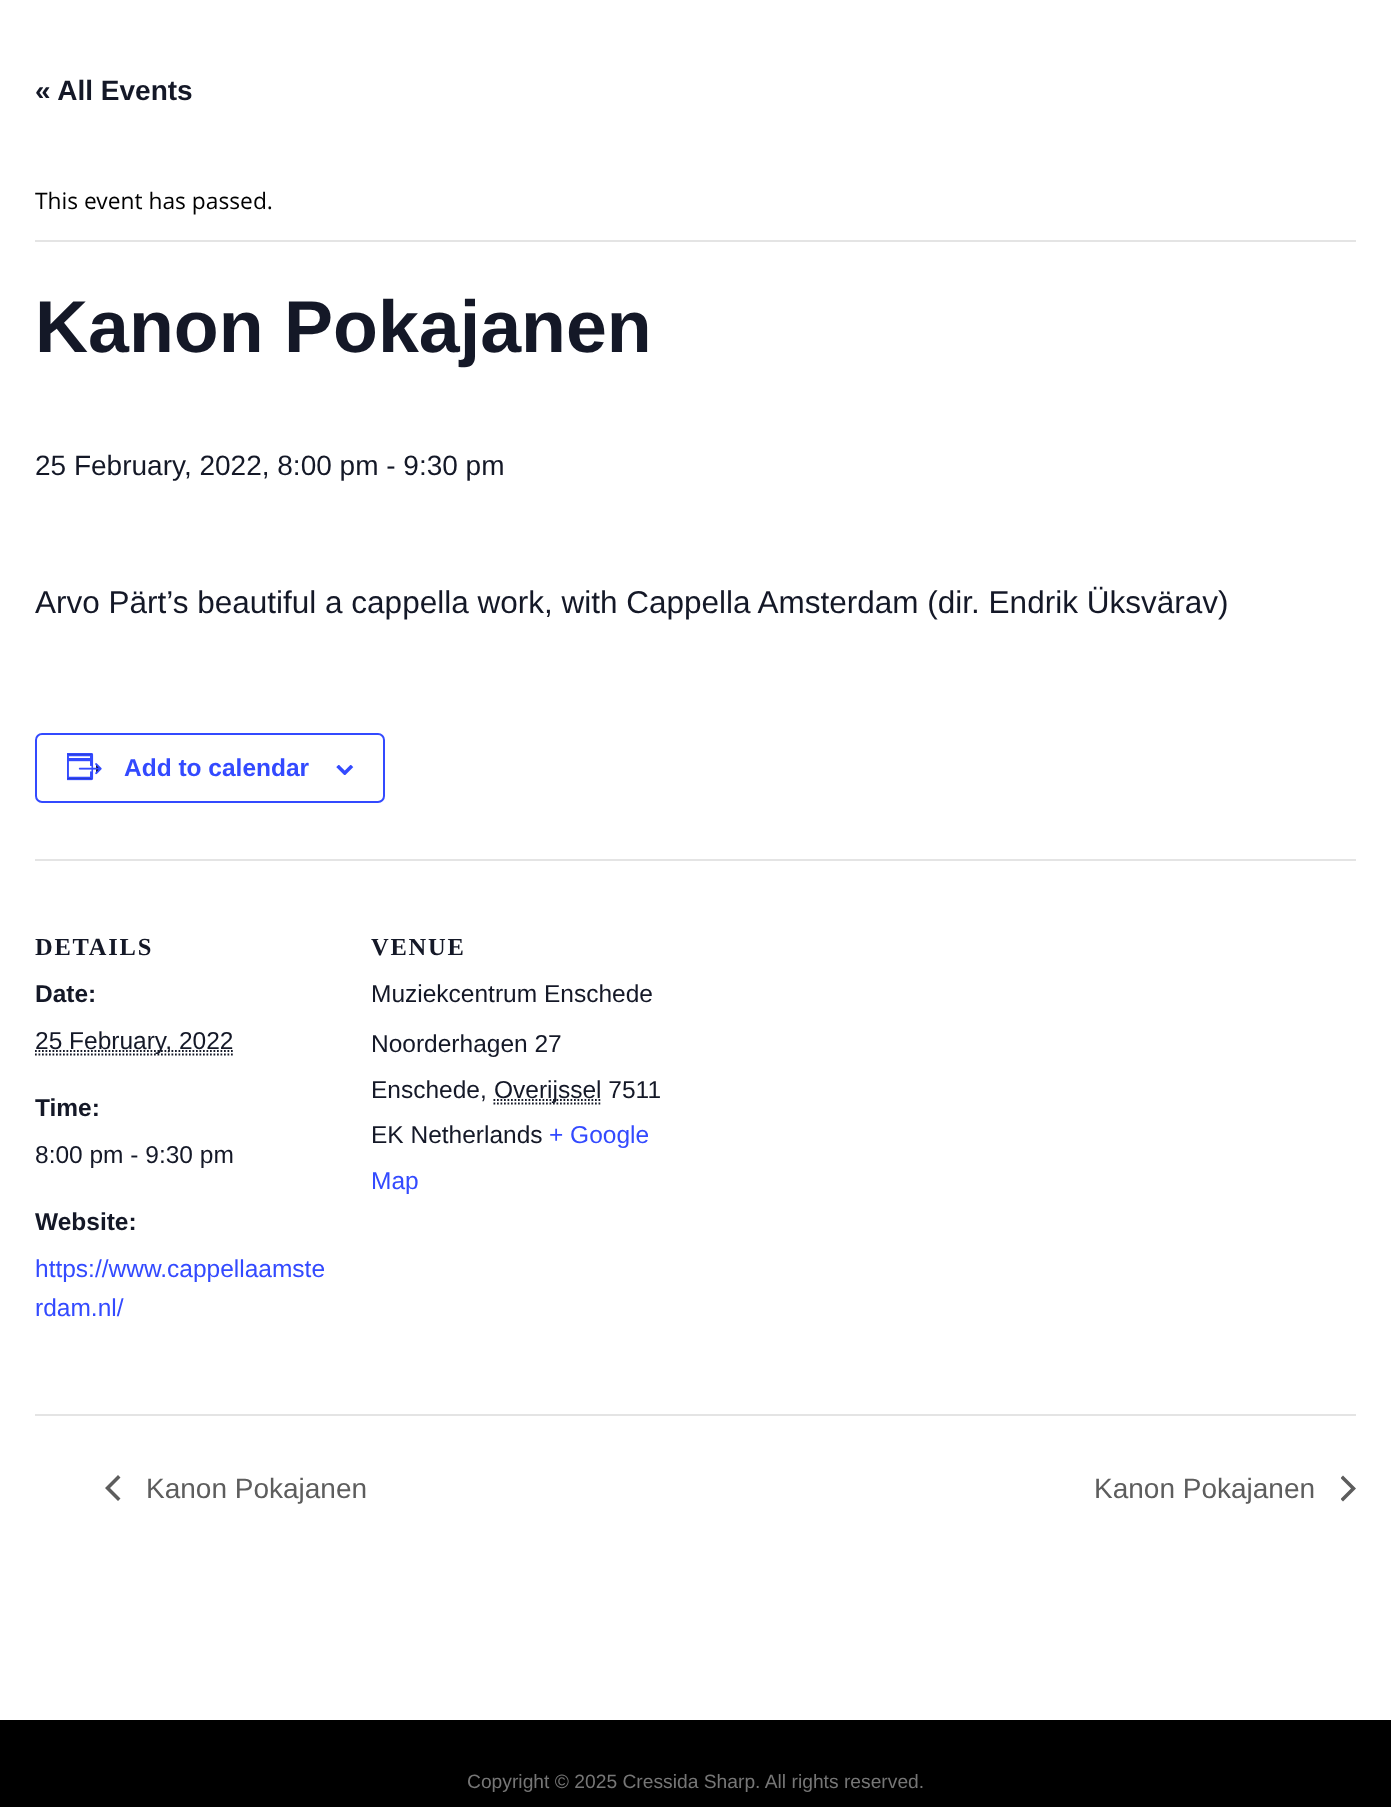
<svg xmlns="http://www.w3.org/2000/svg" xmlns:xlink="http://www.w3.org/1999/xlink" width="1391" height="1807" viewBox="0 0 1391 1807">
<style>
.cls-1{font:bold 28px Liberation Sans;fill:#141827}
.cls-2{font:22.75px Open Sans;fill:#000000}
.cls-3{font:bold 73.5px Liberation Sans;fill:#141827}
.cls-4{font:28px Liberation Sans;fill:#141827}
.cls-5{font:31.5px Liberation Sans;fill:#141827}
.cls-6{font:bold 24.5px Liberation Sans;fill:#334aff}
.cls-7{font:bold 24.5px Liberation Serif;letter-spacing:1.75px;fill:#141827}
.cls-8{font:bold 24.5px Liberation Sans;fill:#141827}
.cls-9{font:24.5px Liberation Sans;fill:#141827}
.cls-10{font:24.5px Liberation Sans;fill:#334aff}
.cls-11{font:28px Liberation Sans;fill:#5d5d5d}
.cls-12{font:19.25px Liberation Sans;fill:#767676}
</style>
<defs>
<clipPath id="clip1"><rect x="1341" y="1475" width="15" height="27"/></clipPath>
</defs>
<rect width="100%" height="100%" fill="#ffffff"/>
<rect fill="#e4e4e4" x="35" y="240" width="1321" height="2"/>
<rect fill="none" stroke="#334aff" stroke-width="2" x="36" y="734" width="348" height="68" rx="6"/>
<image xlink:href="image0.png" x="67" y="753" width="35" height="28"/>
<image xlink:href="image1.png" x="336" y="765" width="18" height="10"/>
<rect fill="#e4e4e4" x="35" y="859" width="1321" height="2"/>
<path fill="none" stroke="#141827" stroke-width="1.8" stroke-dasharray="1.75 1.75" d="M35 1054.5H233"/>
<path fill="none" stroke="#141827" stroke-width="1.8" stroke-dasharray="1.75 1.75" d="M35 1051H233.5"/>
<path fill="none" stroke="#141827" stroke-width="1.8" stroke-dasharray="1.75 1.75" d="M493.5 1103.5H602"/>
<path fill="none" stroke="#141827" stroke-width="1.8" stroke-dasharray="1.75 1.75" d="M493.5 1100H601"/>
<rect fill="#e4e4e4" x="35" y="1414" width="1321" height="2"/>
<path fill="#5d5d5d" d="M120.5 1498.5L118 1501L105 1488L118 1475L120.5 1477.5L110 1488Z"/>
<g clip-path="url(#clip1)">
<path fill="#5d5d5d" d="M1340.5 1478L1343 1475.5L1356 1488.5L1343 1501.5L1340.5 1499L1351 1488.5Z"/>
</g>
<rect fill="#000000" x="0" y="1720" width="1391" height="87"/>
<text class="cls-1" x="35" y="100">« All Events</text>
<text class="cls-2" x="35" y="209">This event has passed.</text>
<text class="cls-3" x="35" y="352">Kanon Pokajanen</text>
<text class="cls-4" x="35" y="475">25 February, 2022, 8:00 pm - 9:30 pm</text>
<text class="cls-5" x="35" y="613">Arvo Pärt’s beautiful a cappella work, with Cappella Amsterdam (dir. Endrik Üksvärav)</text>
<text class="cls-6" x="124" y="776">Add to calendar</text>
<text class="cls-7" x="35" y="955">DETAILS</text>
<text class="cls-8" x="35" y="1002">Date:</text>
<text class="cls-9" x="35" y="1049">25 February, 2022</text>
<text class="cls-8" x="35" y="1116">Time:</text>
<text class="cls-9" x="35" y="1163">8:00 pm - 9:30 pm</text>
<text class="cls-8" x="35" y="1230">Website:</text>
<text class="cls-10"><tspan x="35" y="1277">https://www.cappellaamste</tspan><tspan x="35" y="1316">rdam.nl/</tspan></text>
<text class="cls-7" x="371" y="955">VENUE</text>
<text class="cls-9" x="371" y="1002">Muziekcentrum Enschede</text>
<text class="cls-9"><tspan x="371" y="1052">Noorderhagen 27</tspan><tspan x="371" y="1098">Enschede,</tspan></text>
<text class="cls-9" x="494" y="1098">Overijssel 7511</text>
<text class="cls-9" x="371" y="1143">EK Netherlands</text>
<text class="cls-10" x="549" y="1143">+ Google</text>
<text class="cls-10" x="371" y="1189">Map</text>
<text class="cls-11" x="146" y="1498">Kanon Pokajanen</text>
<text class="cls-11" x="1094" y="1498">Kanon Pokajanen</text>
<text class="cls-12" x="467" y="1788">Copyright © 2025 Cressida Sharp. All rights reserved.</text>
</svg>
